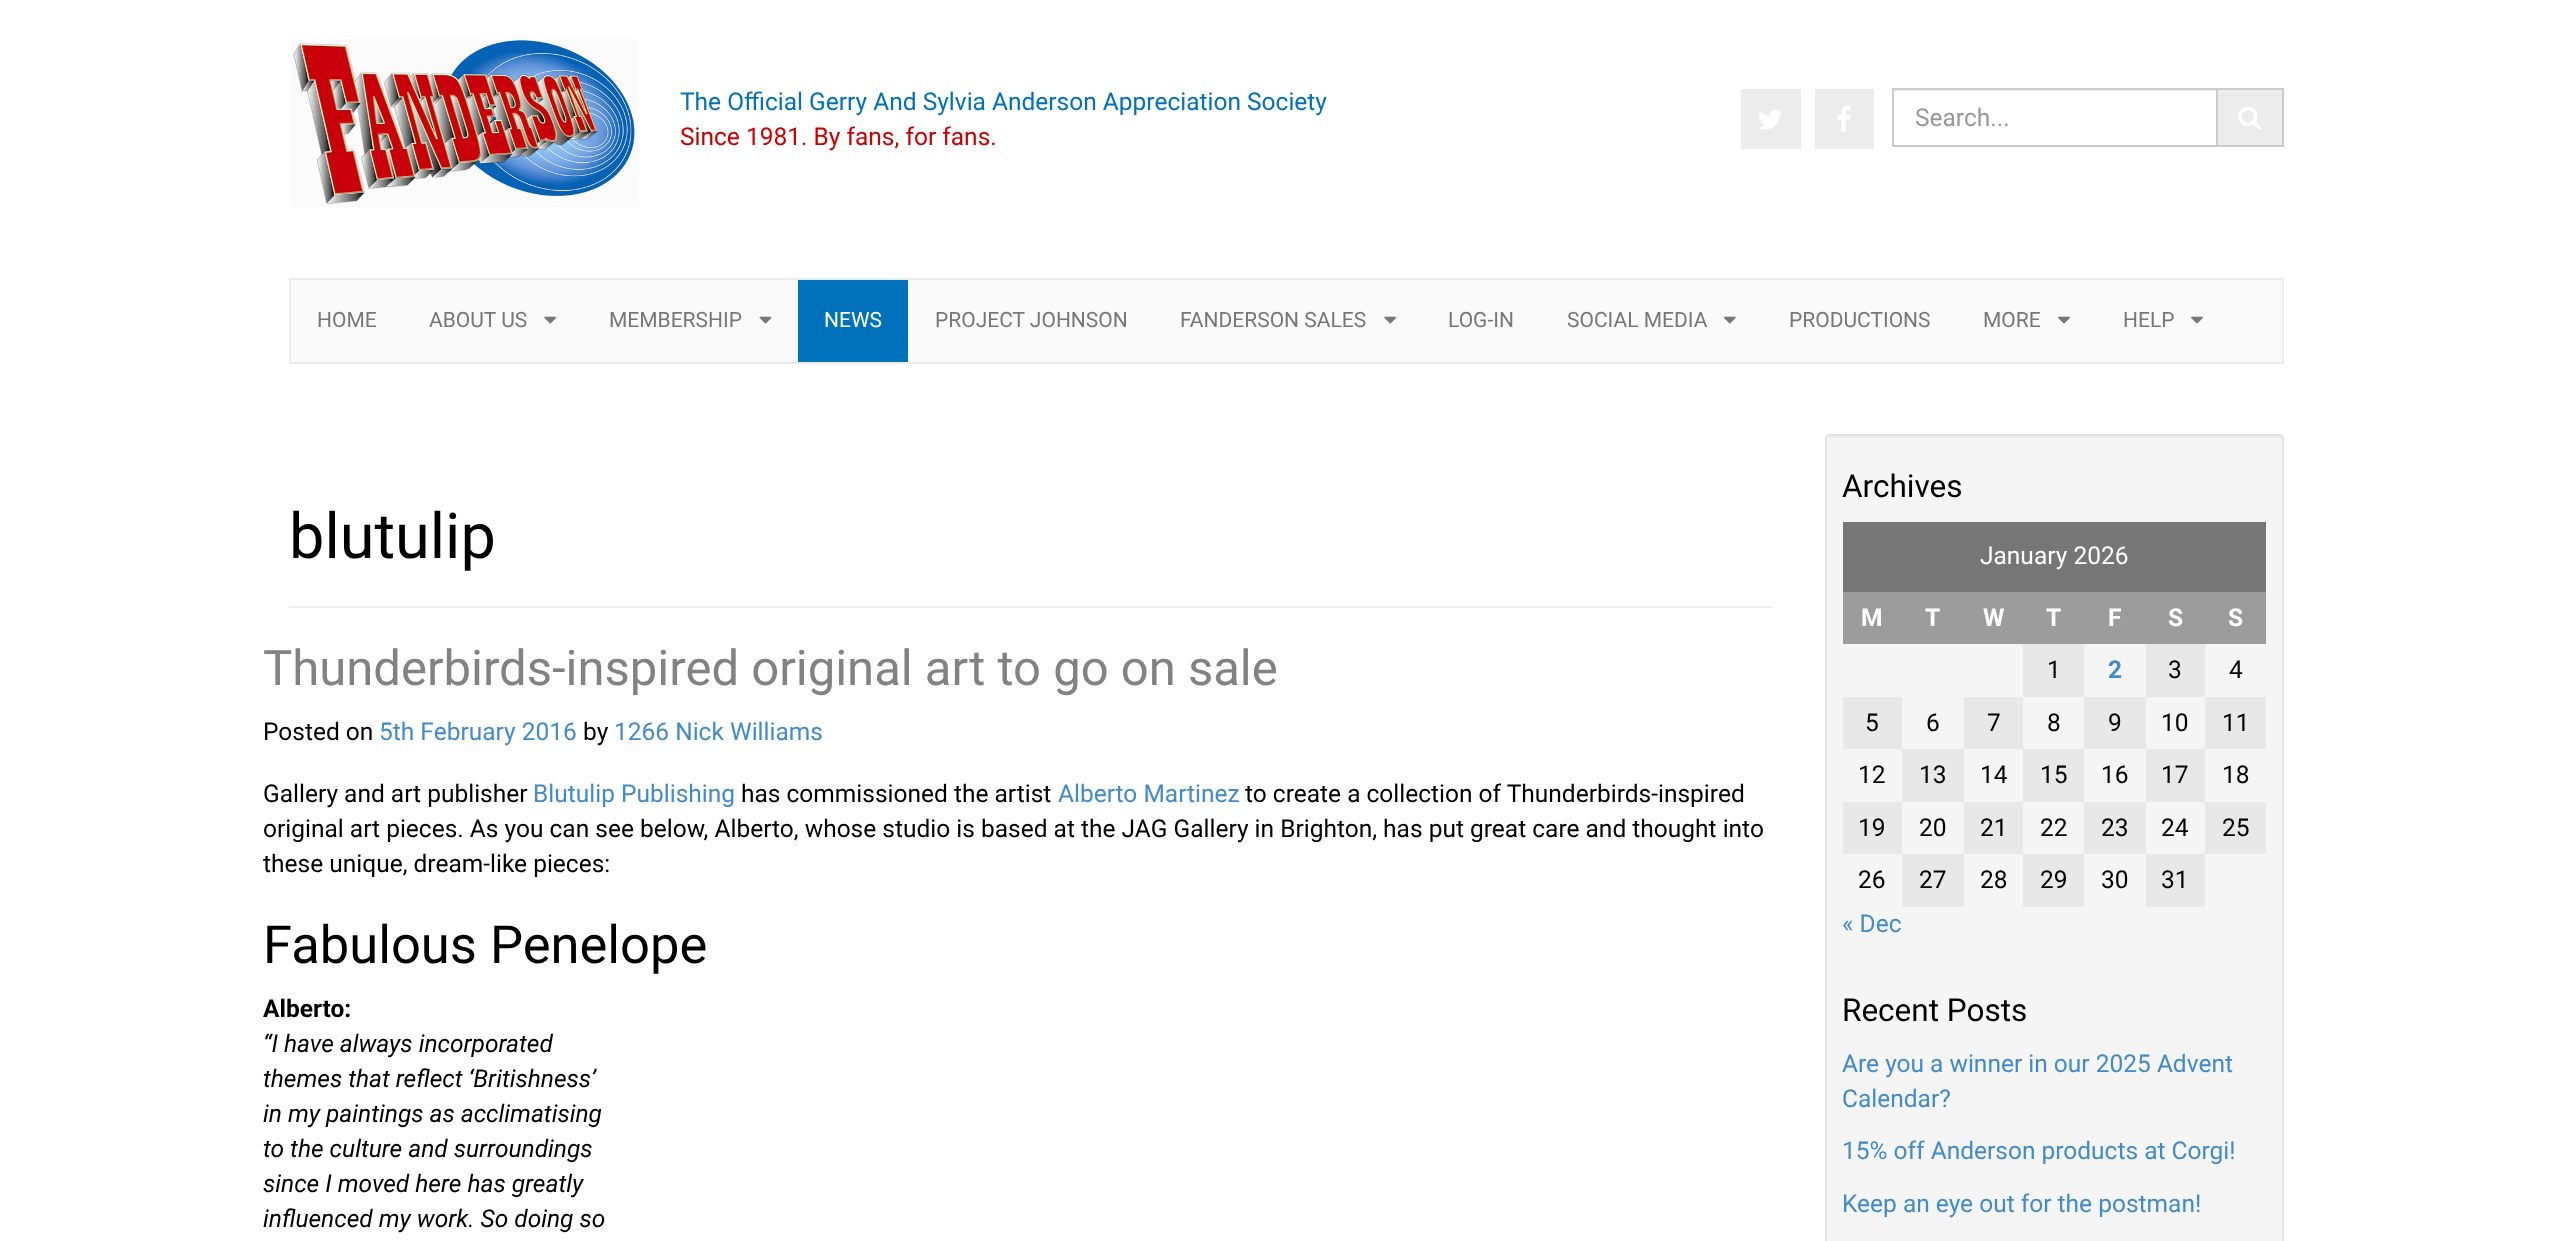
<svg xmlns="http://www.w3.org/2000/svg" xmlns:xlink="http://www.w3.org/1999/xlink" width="2571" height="1241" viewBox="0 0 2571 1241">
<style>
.cls-1{font:24.5px Roboto;fill:#0072bb}
.cls-2{font:24.5px Roboto;fill:#cc0000}
.cls-3{font:24.5px Roboto;fill:#999999}
.cls-4{font:21px Roboto;fill:#777777}
.cls-5{font:21px Roboto;fill:#ffffff}
.cls-6{font:63px Roboto;fill:#000000}
.cls-7{font:49px Roboto;fill:#828282}
.cls-8{font:24.5px Roboto;fill:#000000}
.cls-9{font:24.5px Roboto;fill:#428bca}
.cls-10{font:52.5px Roboto;fill:#000000}
.cls-11{font:bold 24.5px Roboto;fill:#000000}
.cls-12{font:italic 24.5px Roboto;fill:#000000}
.cls-13{font:31.5px Roboto;fill:#000000}
.cls-14{font:24.5px Roboto;fill:#ffffff}
.cls-15{font:bold 24.5px Roboto;fill:#ffffff}
.cls-16{font:bold 24.5px Roboto;fill:#428bca}
</style>
<rect width="100%" height="100%" fill="#ffffff"/>
<image xlink:href="image0.png" x="291" y="39" width="348" height="168"/>
<rect fill="#ececec" x="1741" y="89" width="60" height="60"/>
<image xlink:href="image1.png" x="1758" y="109" width="24" height="21"/>
<rect fill="#ececec" x="1815" y="89" width="59" height="60"/>
<image xlink:href="image2.png" x="1837" y="105" width="14" height="27"/>
<rect fill="#ececec" x="1894" y="90" width="322" height="1"/>
<rect fill="#cccccc" x="1892" y="88" width="324" height="2"/>
<rect fill="#cccccc" x="1892" y="145" width="324" height="2"/>
<rect fill="#cccccc" x="1892" y="88" width="2" height="59"/>
<rect fill="#ececec" stroke="#cccccc" stroke-width="2" x="2217" y="89" width="66" height="57"/>
<image xlink:href="image3.png" x="2238" y="106" width="23" height="24"/>
<rect fill="#fafafa" stroke="#ececec" stroke-width="2" x="290" y="279" width="1993" height="84"/>
<image xlink:href="image4.png" x="544" y="316" width="13" height="8"/>
<image xlink:href="image5.png" x="759" y="316" width="13" height="8"/>
<rect fill="#0072bb" x="798" y="280" width="110" height="82"/>
<image xlink:href="image4.png" x="1384" y="316" width="13" height="8"/>
<image xlink:href="image6.png" x="1723" y="316" width="13" height="8"/>
<image xlink:href="image7.png" x="2058" y="316" width="12" height="8"/>
<image xlink:href="image7.png" x="2191" y="316" width="12" height="8"/>
<rect fill="#eeeeee" x="289" y="606" width="1484" height="2"/>
<rect fill="#f5f5f5" x="1825" y="434" width="459" height="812" rx="5"/>
<path fill="#e9e9e9" d="M1830 438H2278C2280 438 2282 439 2282 441C2282 438 2281 436 2278 436H1831L1829 437L1828 438L1827 441C1827 439 1829 438 1830 438Z"/>
<rect fill="none" stroke="#e3e3e3" stroke-width="2" x="1826" y="435" width="457" height="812" rx="4"/>
<rect fill="#767676" x="1843" y="522" width="423" height="70"/>
<rect fill="#9c9c9c" x="1843" y="592" width="423" height="52"/>
<rect fill="#e8e8e8" x="2023" y="644" width="61" height="53"/>
<rect fill="#e8e8e8" x="2146" y="644" width="59" height="53"/>
<rect fill="#e8e8e8" x="1843" y="697" width="59" height="52"/>
<rect fill="#e8e8e8" x="1964" y="697" width="59" height="52"/>
<rect fill="#e8e8e8" x="2084" y="697" width="62" height="52"/>
<rect fill="#e8e8e8" x="2205" y="697" width="61" height="52"/>
<rect fill="#e8e8e8" x="1902" y="749" width="62" height="53"/>
<rect fill="#e8e8e8" x="2023" y="749" width="61" height="53"/>
<rect fill="#e8e8e8" x="2146" y="749" width="59" height="53"/>
<rect fill="#e8e8e8" x="1843" y="802" width="59" height="52"/>
<rect fill="#e8e8e8" x="1964" y="802" width="59" height="52"/>
<rect fill="#e8e8e8" x="2084" y="802" width="62" height="52"/>
<rect fill="#e8e8e8" x="2205" y="802" width="61" height="52"/>
<rect fill="#e8e8e8" x="1902" y="854" width="62" height="53"/>
<rect fill="#e8e8e8" x="2023" y="854" width="61" height="53"/>
<rect fill="#e8e8e8" x="2146" y="854" width="59" height="53"/>
<text class="cls-1" x="680" y="110">The Official Gerry And Sylvia Anderson Appreciation Society</text>
<text class="cls-2" x="680" y="145">Since 1981. By fans, for fans.</text>
<text class="cls-3" x="1915" y="126">Search...</text>
<text class="cls-4" x="317" y="327">HOME</text>
<text class="cls-4" x="429" y="327">ABOUT US</text>
<text class="cls-4" x="609" y="327">MEMBERSHIP</text>
<text class="cls-5" x="824" y="327">NEWS</text>
<text class="cls-4" x="935" y="327">PROJECT JOHNSON</text>
<text class="cls-4" x="1180" y="327">FANDERSON SALES</text>
<text class="cls-4" x="1448" y="327">LOG-IN</text>
<text class="cls-4" x="1567" y="327">SOCIAL MEDIA</text>
<text class="cls-4" x="1789" y="327">PRODUCTIONS</text>
<text class="cls-4" x="1983" y="327">MORE</text>
<text class="cls-4" x="2123" y="327">HELP</text>
<text class="cls-6" x="289" y="558">blutulip</text>
<text class="cls-7" x="263" y="685">Thunderbirds-inspired original art to go on sale</text>
<text class="cls-8" x="263" y="740">Posted on</text>
<text class="cls-9" x="379" y="740">5th February 2016</text>
<text class="cls-8" x="583" y="740">by</text>
<text class="cls-9" x="614" y="740">1266 Nick Williams</text>
<text class="cls-8" x="263" y="802">Gallery and art publisher</text>
<text class="cls-9" x="533" y="802">Blutulip Publishing</text>
<text class="cls-8" x="741" y="802">has commissioned the artist</text>
<text class="cls-9" x="1058" y="802">Alberto Martinez</text>
<text class="cls-8" x="1245" y="802">to create a collection of Thunderbirds-inspired</text>
<text class="cls-8"><tspan x="263" y="837">original art pieces. As you can see below, Alberto, whose studio is based at the JAG Gallery in Brighton, has put great care and thought into</tspan><tspan x="263" y="872">these unique, dream-like pieces:</tspan></text>
<text class="cls-10" x="263" y="963">Fabulous Penelope</text>
<text class="cls-11" x="263" y="1017">Alberto:</text>
<text class="cls-12"><tspan x="263" y="1052">“I have always incorporated</tspan><tspan x="263" y="1087">themes that reflect ‘Britishness’</tspan><tspan x="263" y="1122">in my paintings as acclimatising</tspan><tspan x="263" y="1157">to the culture and surroundings</tspan><tspan x="263" y="1192">since I moved here has greatly</tspan><tspan x="263" y="1227">influenced my work. So doing so</tspan></text>
<text class="cls-13" x="1842" y="497">Archives</text>
<text class="cls-14" x="1980" y="564">January 2026</text>
<text class="cls-15" x="1861" y="626">M</text>
<text class="cls-15" x="1925" y="626">T</text>
<text class="cls-15" x="1983" y="626">W</text>
<text class="cls-15" x="2046" y="626">T</text>
<text class="cls-15" x="2108" y="626">F</text>
<text class="cls-15" x="2168" y="626">S</text>
<text class="cls-15" x="2228" y="626">S</text>
<text class="cls-8" x="2047" y="678">1</text>
<text class="cls-16" x="2108" y="678">2</text>
<text class="cls-8" x="2168" y="678">3</text>
<text class="cls-8" x="2229" y="678">4</text>
<text class="cls-8" x="1865" y="731">5</text>
<text class="cls-8" x="1926" y="731">6</text>
<text class="cls-8" x="1987" y="731">7</text>
<text class="cls-8" x="2047" y="731">8</text>
<text class="cls-8" x="2108" y="731">9</text>
<text class="cls-8" x="2161" y="731">10</text>
<text class="cls-8" x="2222" y="731">11</text>
<text class="cls-8" x="1858" y="783">12</text>
<text class="cls-8" x="1919" y="783">13</text>
<text class="cls-8" x="1980" y="783">14</text>
<text class="cls-8" x="2040" y="783">15</text>
<text class="cls-8" x="2101" y="783">16</text>
<text class="cls-8" x="2161" y="783">17</text>
<text class="cls-8" x="2222" y="783">18</text>
<text class="cls-8" x="1858" y="836">19</text>
<text class="cls-8" x="1919" y="836">20</text>
<text class="cls-8" x="1980" y="836">21</text>
<text class="cls-8" x="2040" y="836">22</text>
<text class="cls-8" x="2101" y="836">23</text>
<text class="cls-8" x="2161" y="836">24</text>
<text class="cls-8" x="2222" y="836">25</text>
<text class="cls-8" x="1858" y="888">26</text>
<text class="cls-8" x="1919" y="888">27</text>
<text class="cls-8" x="1980" y="888">28</text>
<text class="cls-8" x="2040" y="888">29</text>
<text class="cls-8" x="2101" y="888">30</text>
<text class="cls-8" x="2161" y="888">31</text>
<text class="cls-9" x="1842" y="932">« Dec</text>
<text class="cls-13" x="1842" y="1021">Recent Posts</text>
<text class="cls-9"><tspan x="1842" y="1072">Are you a winner in our 2025 Advent</tspan><tspan x="1842" y="1107">Calendar?</tspan></text>
<text class="cls-9" x="1842" y="1159">15% off Anderson products at Corgi!</text>
<text class="cls-9" x="1842" y="1212">Keep an eye out for the postman!</text>
</svg>
